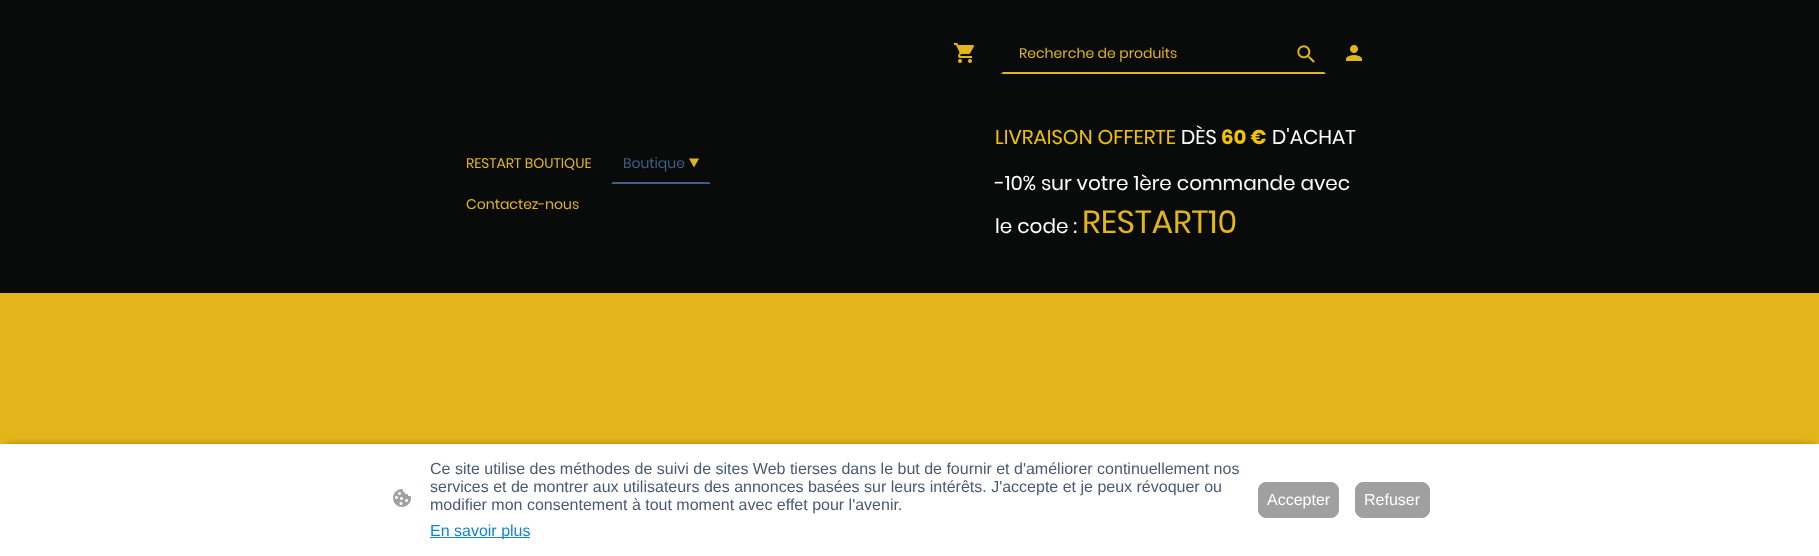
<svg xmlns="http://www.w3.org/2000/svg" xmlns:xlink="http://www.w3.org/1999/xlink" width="1819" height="556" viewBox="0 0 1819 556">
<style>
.cls-1{font:14px Poppins;fill:#e2b61b}
.cls-2{font:14px Poppins;fill:#405f83}
.cls-3{font:20px Poppins;fill:#f2c200}
.cls-4{font:20px Poppins;fill:#ffffff}
.cls-5{font:bold 20px Poppins;fill:#f2c200}
.cls-6{font:32px Poppins;fill:#e2b61b}
.cls-7{font:16px Liberation Sans;fill:#4a5a73}
.cls-8{font:16px Liberation Sans;fill:#1183d1}
.cls-9{font:16px Liberation Sans;fill:#ffffff}
</style>
<rect width="100%" height="100%" fill="#090a0a"/>
<image xlink:href="image0.png" x="954" y="43" width="20" height="20"/>
<path fill="#e2b61b" d="M1326 74H1001L1003 72H1324Z"/>
<image xlink:href="image1.png" x="1297" y="45" width="18" height="18"/>
<image xlink:href="image2.png" x="1346" y="45" width="16" height="16"/>
<path fill="#405f83" d="M711 184H611L613 182H709Z"/>
<path fill="#e2b61b" d="M699 158.5L694 167.5L689 158.5Z"/>
<rect fill="#e2b61b" x="0" y="293" width="1819" height="151"/>
<rect fill="#000000" fill-opacity="0.63" filter="blur(4px)" x="6" y="447" width="1807" height="100"/>
<rect fill="#ffffff" x="0" y="444" width="1819" height="112"/>
<image xlink:href="image3.png" x="393" y="489" width="18" height="18"/>
<rect fill="#1183d1" x="430" y="537" width="100" height="1"/>
<rect fill="#a0a0a0" stroke="#a0a0a0" x="1258.5" y="482.5" width="80" height="35" rx="7.5"/>
<rect fill="#a0a0a0" stroke="#a0a0a0" x="1355.5" y="482.5" width="74" height="35" rx="7.5"/>
<text class="cls-1" x="1019" y="58">Recherche de produits</text>
<text class="cls-1" x="466" y="168">RESTART BOUTIQUE</text>
<text class="cls-2" x="623" y="168">Boutique</text>
<text class="cls-1" x="466" y="209">Contactez-nous</text>
<text class="cls-3" x="995" y="144">LIVRAISON OFFERTE</text>
<text class="cls-4" x="1181" y="144">DÈS</text>
<text class="cls-5" x="1221" y="144">60 €</text>
<text class="cls-4" x="1272" y="144">D'ACHAT</text>
<text class="cls-4" x="995" y="190">-10% sur votre 1ère commande avec</text>
<text class="cls-4" x="995" y="233">le code :</text>
<text class="cls-6" x="1082" y="233">RESTART10</text>
<text class="cls-7"><tspan x="430" y="474">Ce site utilise des méthodes de suivi de sites Web tierses dans le but de fournir et d'améliorer continuellement nos</tspan><tspan x="430" y="492">services et de montrer aux utilisateurs des annonces basées sur leurs intérêts. J'accepte et je peux révoquer ou</tspan><tspan x="430" y="510">modifier mon consentement à tout moment avec effet pour l'avenir.</tspan></text>
<text class="cls-8" x="430" y="536">En savoir plus</text>
<text class="cls-9" x="1267" y="505">Accepter</text>
<text class="cls-9" x="1364" y="505">Refuser</text>
</svg>
